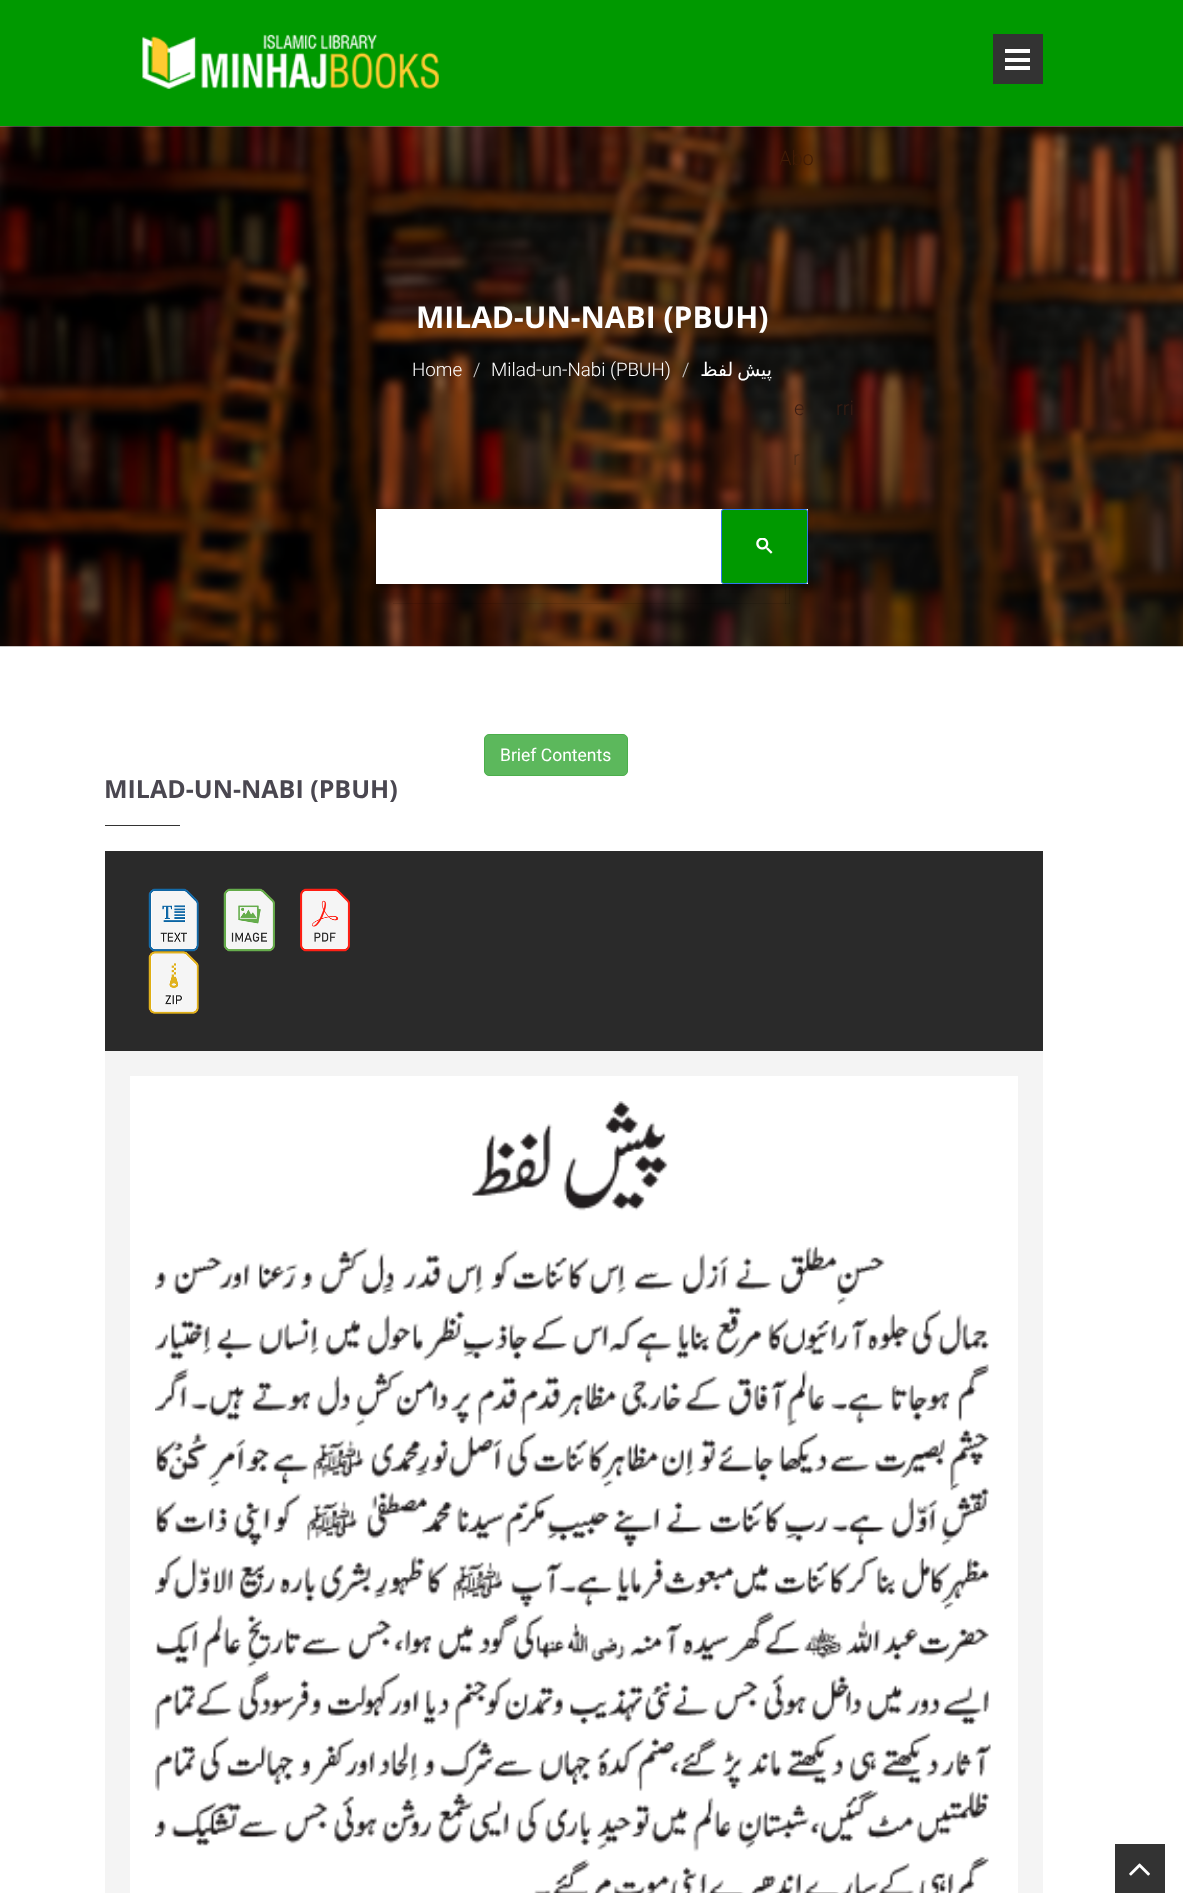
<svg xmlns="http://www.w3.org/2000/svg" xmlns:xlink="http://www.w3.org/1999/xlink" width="1183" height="1893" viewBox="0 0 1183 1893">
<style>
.cls-1{font:bold 30px Open Sans;fill:#ffffff}
.cls-2{font:300 18.75px Roboto;fill:#ffffff}
.cls-3{font:300 18.75px Roboto;fill:#cccccc}
.cls-4{font:18.75px DejaVu Sans;direction:rtl;fill:#ffffff}
.cls-5{font:300 20px Roboto;fill:#411c06}
.cls-6{font:300 20px Roboto;fill:#3a1d13}
.cls-7{font:300 20px Roboto;fill:#4d2c17}
.cls-8{font:17.5px Roboto;fill:#ffffff}
.cls-9{font:bold 25px Open Sans;fill:#4a4750}
</style>
<rect width="100%" height="100%" fill="#ffffff"/>
<image xlink:href="image0.png" x="0" y="126" width="1183" height="521"/>
<rect fill="#000000" fill-opacity="0.3" filter="blur(2px)" x="376" y="513" width="432" height="75"/>
<rect fill="#ffffff" x="376" y="509" width="432" height="75"/>
<rect fill="#000000" fill-opacity="0.1" x="789" y="584" width="1" height="20"/>
<rect fill="#000000" fill-opacity="0.1" x="785" y="603" width="5" height="1"/>
<rect fill="#009900" stroke="#3079ed" x="721.5" y="509.5" width="86" height="74" rx="2"/>
<image xlink:href="image1.png" x="756" y="538" width="17" height="16"/>
<rect fill="#000000" fill-opacity="0.1" x="785" y="584" width="1" height="20"/>
<rect fill="#000000" fill-opacity="0.1" x="393" y="603" width="393" height="1"/>
<rect fill="#009900" x="0" y="0" width="1183" height="126"/>
<image xlink:href="image2.png" x="142" y="34" width="297" height="55"/>
<rect fill="#333333" x="993" y="34" width="50" height="50"/>
<rect fill="#ffffff" x="1005" y="66" width="25" height="4"/>
<rect fill="#ffffff" x="1005" y="58" width="25" height="4"/>
<rect fill="#ffffff" x="1005" y="49" width="25" height="4"/>
<rect fill="#5cb85c" stroke="#4cae4c" x="484.5" y="734.5" width="143" height="41" rx="4.5"/>
<rect fill="#333333" x="105" y="825" width="75" height="1"/>
<rect fill="#2a2a2a" x="105" y="851" width="938" height="200"/>
<image xlink:href="image3.png" x="148" y="888" width="51" height="64"/>
<image xlink:href="image4.png" x="223" y="888" width="52" height="64"/>
<image xlink:href="image5.png" x="300" y="888" width="50" height="64"/>
<image xlink:href="image6.png" x="148" y="951" width="51" height="63"/>
<rect fill="none" stroke="#f4f4f4" stroke-width="25" x="117.5" y="1063.5" width="913" height="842"/>
<image xlink:href="image7.png" x="155" y="1101" width="836" height="792"/>
<rect fill="#333333" x="1115" y="1844" width="50" height="49"/>
<image xlink:href="image8.png" x="1129" y="1863" width="21" height="13"/>
<text class="cls-1" x="416" y="328">MILAD-UN-NABI (PBUH)</text>
<text class="cls-2" x="412" y="376">Home</text>
<text class="cls-3" x="473" y="376">/</text>
<text class="cls-2" x="491" y="376">Milad-un-Nabi (PBUH)</text>
<text class="cls-3" x="682" y="376">/</text>
<text class="cls-4" x="772" y="376" word-spacing="-2">پیش لفظ</text>
<text class="cls-5" x="779" y="165">Abo</text>
<text class="cls-6" x="794" y="415">e</text>
<text class="cls-6" x="836" y="415">rri</text>
<text class="cls-7" x="793" y="465">r</text>
<text class="cls-8" x="500" y="761">Brief Contents</text>
<text class="cls-9" x="104" y="798">MILAD-UN-NABI (PBUH)</text>
</svg>
